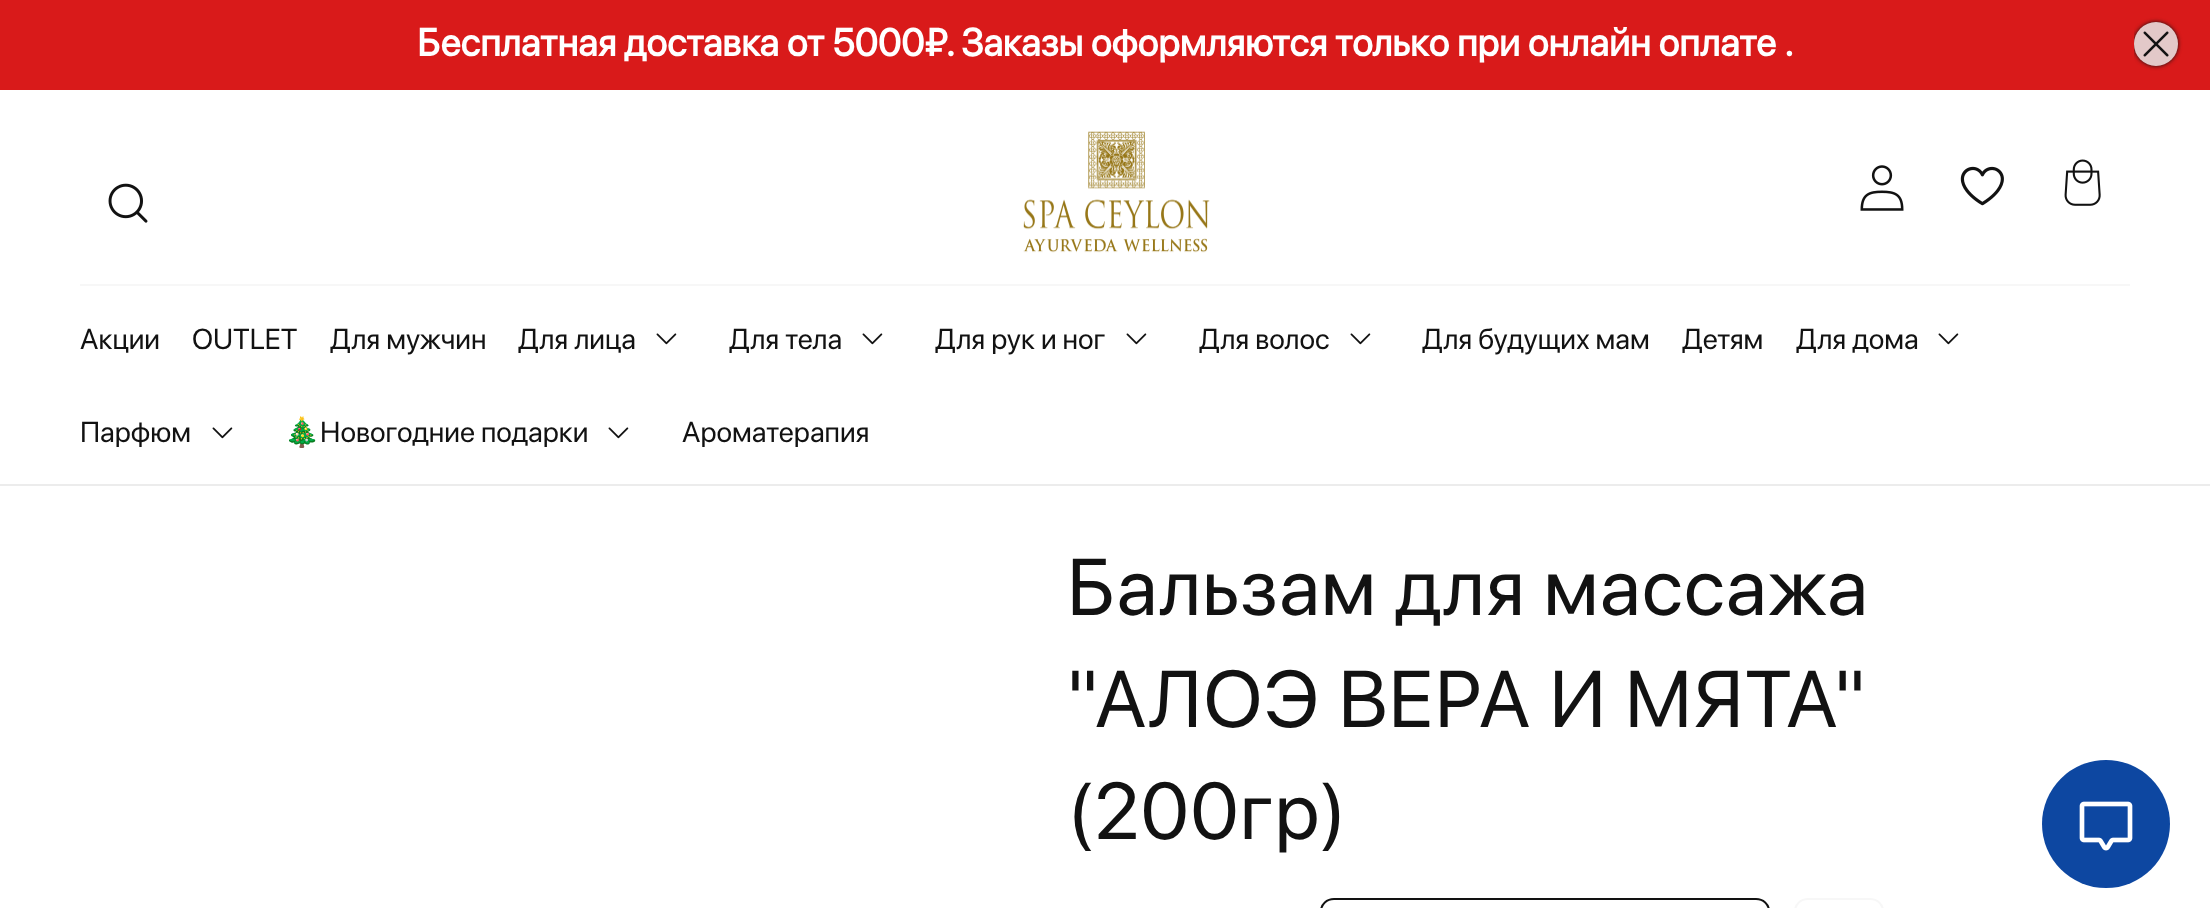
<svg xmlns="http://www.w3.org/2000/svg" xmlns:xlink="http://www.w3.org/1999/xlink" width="2210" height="908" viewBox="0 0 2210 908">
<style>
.cls-1{font:bold 38.4px SF Pro Display;fill:#ffffff}
.cls-2{font:28.75px SF Pro Display;fill:#121212}
.cls-3{font:28.75px Noto Color Emoji;fill:#121212}
.cls-4{font:80px SF Pro Display;letter-spacing:1.25px;fill:#121212}
</style>
<defs>
<clipPath id="clip1"><rect x="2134" y="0" width="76" height="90"/></clipPath>
</defs>
<rect width="100%" height="100%" fill="#ffffff"/>
<rect fill="#d91a1a" x="0" y="0" width="2210" height="90"/>
<g clip-path="url(#clip1)">
<rect fill="#121212" filter="blur(2px)" x="2134" y="22" width="44" height="44" rx="22"/>
</g>
<circle fill="#e3c9c9" cx="2156" cy="44" r="22"/>
<image xlink:href="image0.png" x="2143" y="31" width="26" height="26"/>
<rect fill="#ececec" x="0" y="484" width="2210" height="2"/>
<image xlink:href="image1.png" x="108" y="183" width="40" height="40"/>
<image xlink:href="image2.png" x="1023" y="131" width="187" height="122"/>
<image xlink:href="image3.png" x="1860" y="165" width="44" height="46"/>
<image xlink:href="image4.png" x="1960" y="166" width="44" height="40"/>
<image xlink:href="image5.png" x="2064" y="159" width="37" height="47"/>
<rect fill="#f7f7f7" x="80" y="284" width="2050" height="2"/>
<image xlink:href="image6.png" x="656" y="333" width="21" height="12"/>
<image xlink:href="image6.png" x="862" y="333" width="21" height="12"/>
<image xlink:href="image6.png" x="1126" y="333" width="21" height="12"/>
<image xlink:href="image6.png" x="1350" y="333" width="21" height="12"/>
<image xlink:href="image6.png" x="1938" y="333" width="21" height="12"/>
<image xlink:href="image6.png" x="212" y="427" width="21" height="12"/>
<image xlink:href="image6.png" x="608" y="427" width="21" height="12"/>
<rect fill="none" stroke="#121212" stroke-width="2" x="1321" y="899" width="448" height="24" rx="13"/>
<rect fill="none" stroke="#f7f7f7" stroke-width="2" x="1795" y="899" width="88" height="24" rx="13"/>
<circle fill="#0d47a1" cx="2106" cy="824" r="64"/>
<image xlink:href="image7.png" x="2079" y="801" width="54" height="50"/>
<text class="cls-1" x="417" y="56">Бесплатная доставка от 5000₽.</text>
<text class="cls-1" x="961" y="56">Заказы оформляются только при онлайн оплате .</text>
<text class="cls-2" x="80" y="349">Акции</text>
<text class="cls-2" x="192" y="349">OUTLET</text>
<text class="cls-2" x="330" y="349">Для мужчин</text>
<text class="cls-2" x="518" y="349">Для лица</text>
<text class="cls-2" x="729" y="349">Для тела</text>
<text class="cls-2" x="935" y="349">Для рук и ног</text>
<text class="cls-2" x="1199" y="349">Для волос</text>
<text class="cls-2" x="1422" y="349">Для будущих мам</text>
<text class="cls-2" x="1682" y="349">Детям</text>
<text class="cls-2" x="1796" y="349">Для дома</text>
<text class="cls-2" x="80" y="442">Парфюм</text>
<text class="cls-3" x="284" y="442">🎄</text>
<text class="cls-2" x="320" y="442">Новогодние подарки</text>
<text class="cls-2" x="682" y="442">Ароматерапия</text>
<text class="cls-4"><tspan x="1067" y="615">Бальзам для массажа</tspan><tspan x="1067" y="727">"АЛОЭ ВЕРА И МЯТА"</tspan><tspan x="1067" y="839">(200гр)</tspan></text>
</svg>
